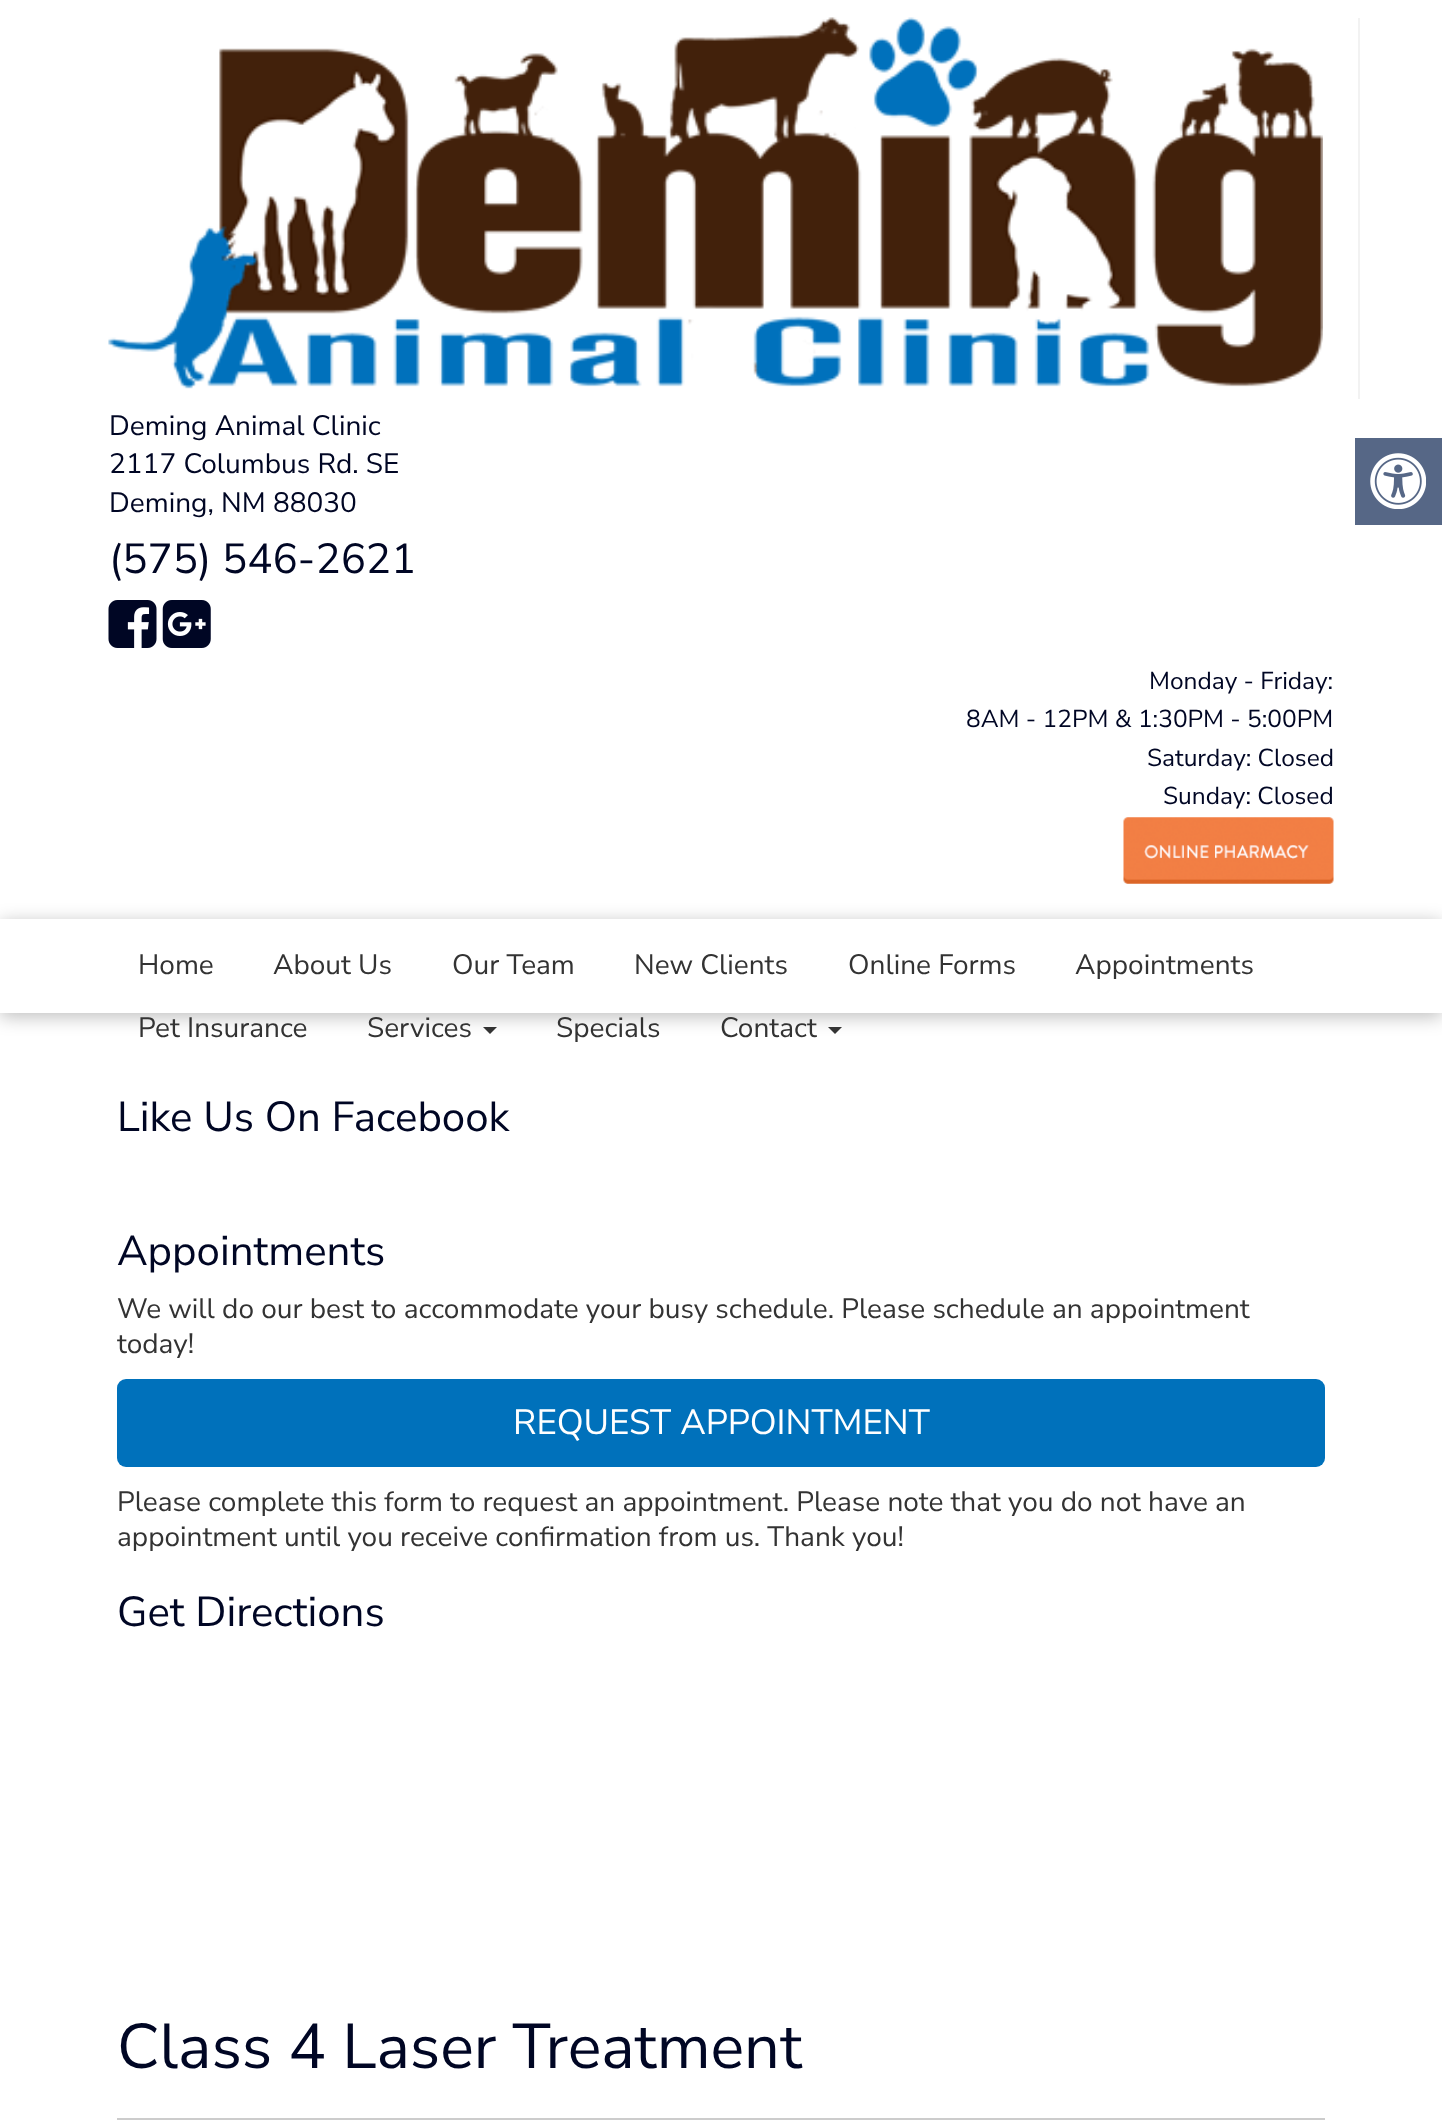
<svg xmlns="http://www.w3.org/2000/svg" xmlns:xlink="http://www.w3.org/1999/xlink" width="1442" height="2128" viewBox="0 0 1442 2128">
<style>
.cls-1{font:200 28px Nunito Sans;fill:#000624}
.cls-2{font:200 42px Nunito Sans;fill:#000624}
.cls-3{font:200 24.5px Nunito Sans;fill:#000624}
.cls-4{font:200 28px Nunito Sans;fill:#333333}
.cls-5{font:200 35px Nunito Sans;fill:#ffffff}
.cls-6{font:200 63px Nunito Sans;fill:#000624}
</style>
<defs>
<clipPath id="clip1"><path d="M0 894H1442V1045H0ZM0 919H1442V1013H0Z" clip-rule="evenodd"/></clipPath>
</defs>
<rect width="100%" height="100%" fill="#ffffff"/>
<rect fill="#f2f2f2" x="1358" y="18" width="2" height="381"/>
<image xlink:href="image0.png" x="108" y="17" width="1215" height="372"/>
<image xlink:href="image1.png" x="108" y="600" width="49" height="48"/>
<image xlink:href="image2.png" x="162" y="600" width="49" height="48"/>
<image xlink:href="image3.png" x="1123" y="817" width="211" height="67"/>
<rect fill="#566786" x="1355" y="438" width="87" height="87"/>
<image xlink:href="image4.png" x="1370" y="453" width="56" height="56"/>
<g clip-path="url(#clip1)">
<rect fill="#000000" fill-opacity="0.25" filter="blur(9px)" x="0" y="922" width="1442" height="95"/>
</g>
<path fill="#333333" d="M483 1027H497L490 1034Z"/>
<path fill="#333333" d="M828 1027H842L835 1034Z"/>
<rect fill="#0071bb" x="117" y="1379" width="1208" height="88" rx="9"/>
<rect fill="#cccccc" x="117" y="2118" width="1208" height="2"/>
<text class="cls-1"><tspan x="109" y="435">Deming Animal Clinic</tspan><tspan x="109" y="473">2117 Columbus Rd. SE</tspan><tspan x="109" y="512">Deming, NM 88030</tspan></text>
<text class="cls-2" x="109" y="573">(575) 546-2621</text>
<text class="cls-3" x="1149" y="689">Monday - Friday:</text>
<text class="cls-3" x="966" y="727">8AM - 12PM &amp; 1:30PM - 5:00PM</text>
<text class="cls-3" x="1147" y="766">Saturday: Closed</text>
<text class="cls-3" x="1163" y="804">Sunday: Closed</text>
<text class="cls-4" x="138" y="974">Home</text>
<text class="cls-4" x="273" y="974">About Us</text>
<text class="cls-4" x="452" y="974">Our Team</text>
<text class="cls-4" x="634" y="974">New Clients</text>
<text class="cls-4" x="848" y="974">Online Forms</text>
<text class="cls-4" x="1075" y="974">Appointments</text>
<text class="cls-4" x="138" y="1037">Pet Insurance</text>
<text class="cls-4" x="367" y="1037">Services</text>
<text class="cls-4" x="556" y="1037">Specials</text>
<text class="cls-4" x="720" y="1037">Contact</text>
<text class="cls-2" x="117" y="1131">Like Us On Facebook</text>
<text class="cls-2" x="117" y="1265">Appointments</text>
<text class="cls-4"><tspan x="117" y="1318">We will do our best to accommodate your busy schedule. Please schedule an appointment</tspan><tspan x="117" y="1353">today!</tspan></text>
<text class="cls-5" x="513" y="1434">REQUEST APPOINTMENT</text>
<text class="cls-4"><tspan x="117" y="1511">Please complete this form to request an appointment. Please note that you do not have an</tspan><tspan x="117" y="1546">appointment until you receive confirmation from us. Thank you!</tspan></text>
<text class="cls-2" x="117" y="1626">Get Directions</text>
<text class="cls-6" x="117" y="2068">Class 4 Laser Treatment</text>
</svg>
